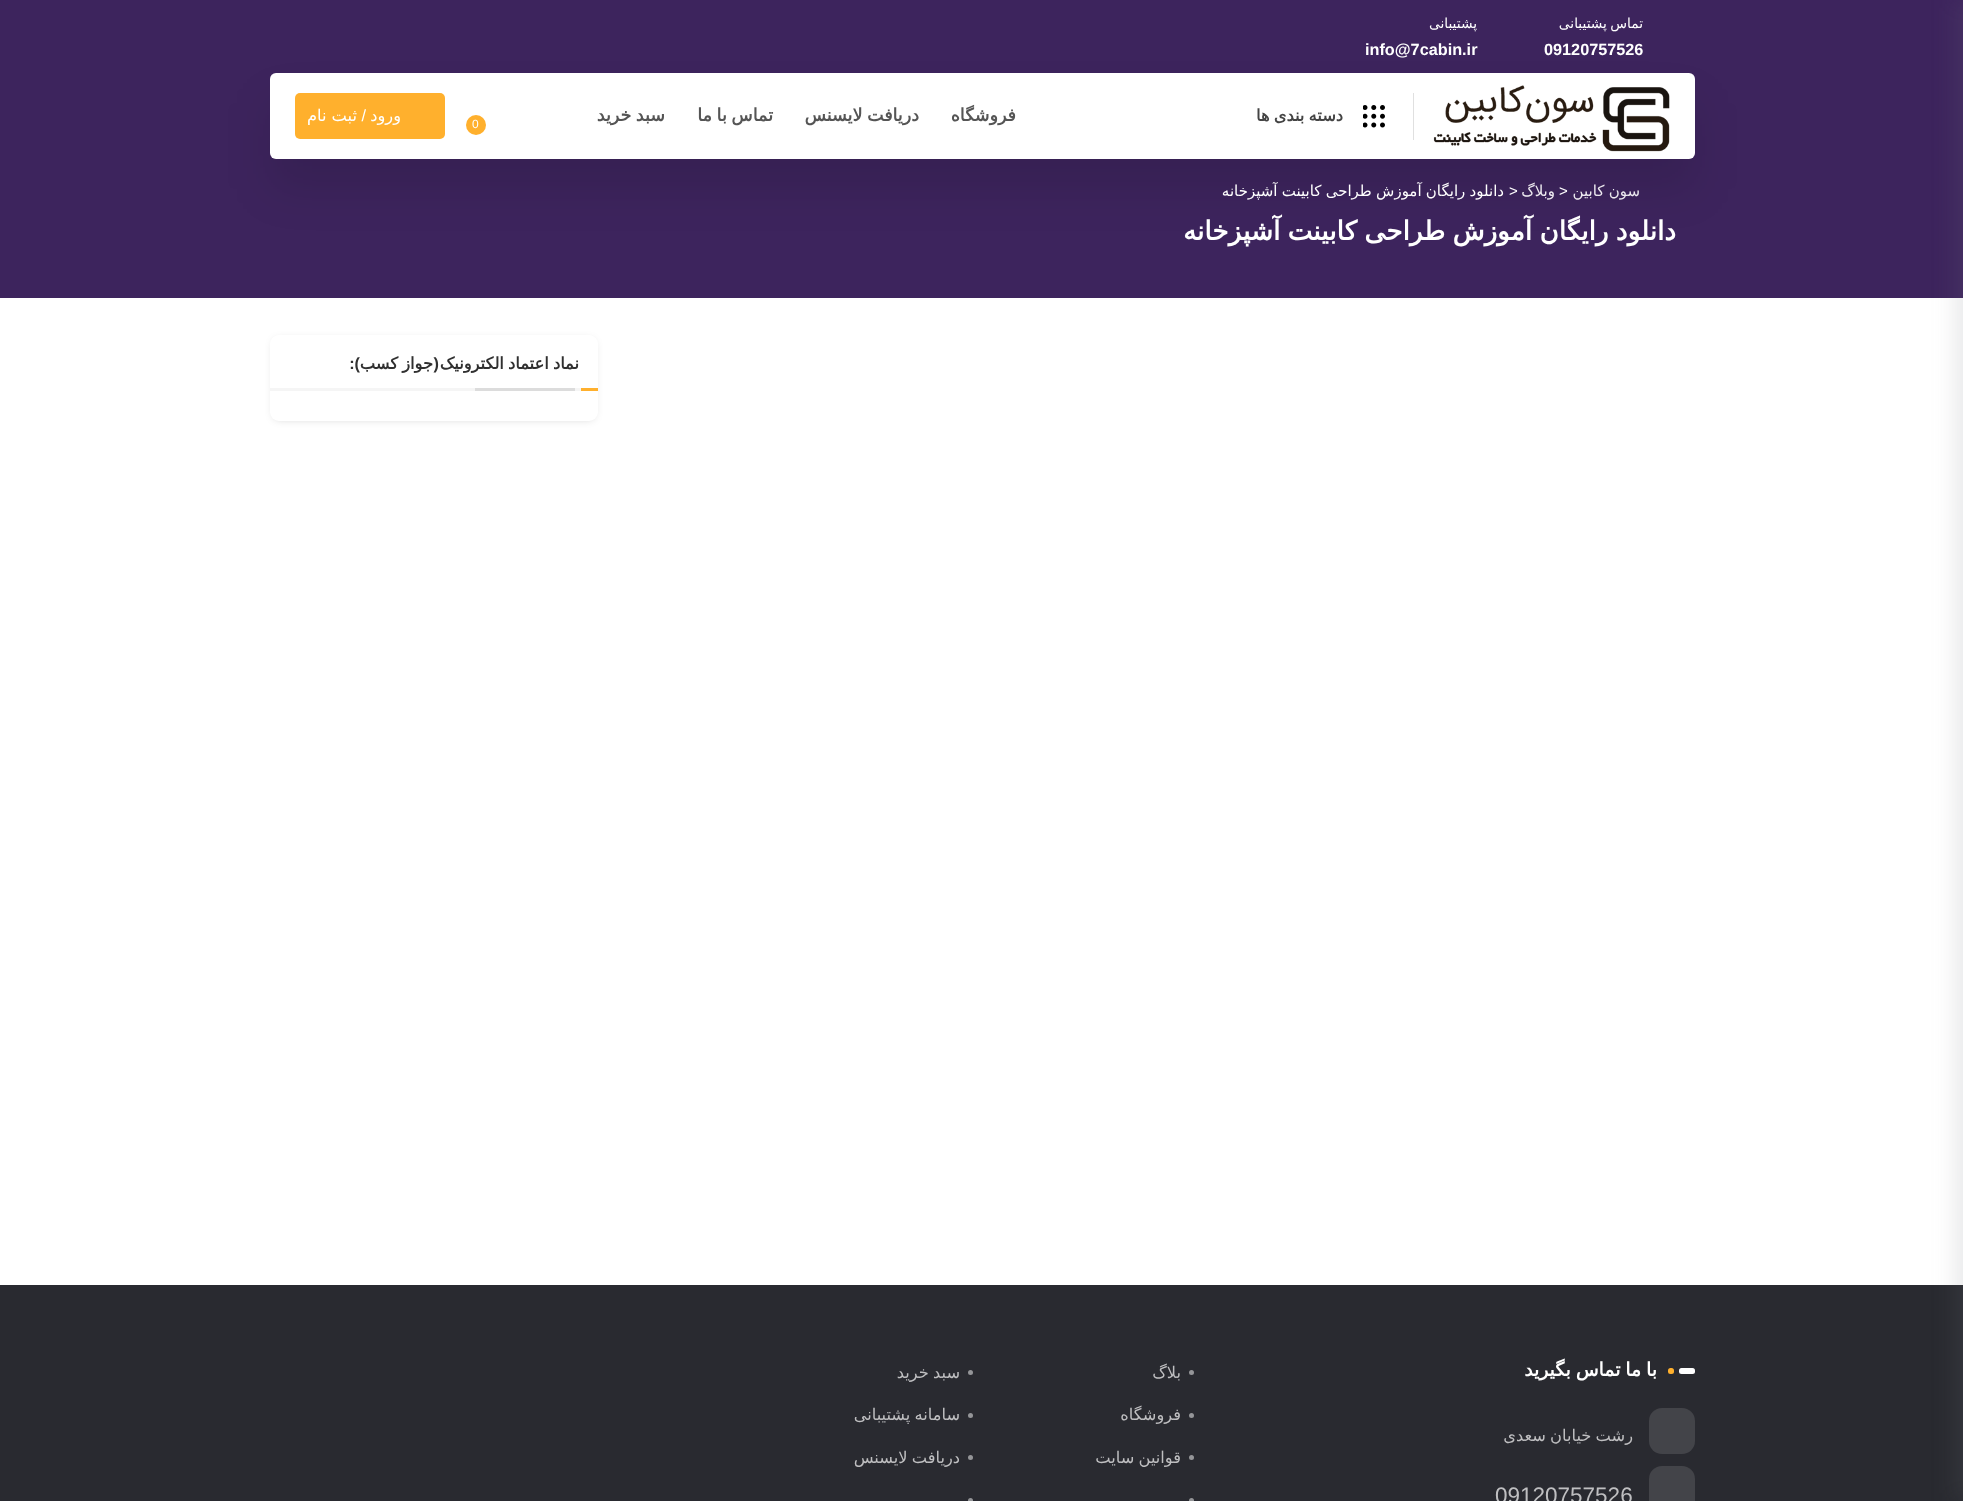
<svg xmlns="http://www.w3.org/2000/svg" xmlns:xlink="http://www.w3.org/1999/xlink" width="1963" height="1501" viewBox="0 0 1963 1501">
<style>
.cls-1{font:13.75px DejaVu Sans;direction:rtl;fill:#ffffff}
.cls-2{font:bold 16.25px Liberation Sans;fill:#ffffff}
.cls-3{font:bold 16.25px DejaVu Sans;direction:rtl;fill:#444444}
.cls-4{font:bold 17.5px DejaVu Sans;direction:rtl;fill:#555555}
.cls-5{font:12px Liberation Sans;fill:#ffffff}
.cls-6{font:16.25px DejaVu Sans;direction:rtl;fill:#ffffff}
.cls-7{font:16.25px Liberation Sans;direction:rtl;fill:#ffffff}
.cls-8{font:15px DejaVu Sans;direction:rtl;fill:#ece9ef}
.cls-9{font:15px Liberation Sans;fill:#ffffff}
.cls-10{font:15px DejaVu Sans;direction:rtl;fill:#ffffff}
.cls-11{font:bold 26.25px DejaVu Sans;direction:rtl;fill:#ffffff}
.cls-12{font:bold 16.25px DejaVu Sans;direction:rtl;fill:#303030}
.cls-13{font:bold 16.25px Liberation Sans;direction:rtl;fill:#303030}
.cls-14{font:bold 18.75px DejaVu Sans;direction:rtl;fill:#ffffff}
.cls-15{font:16.25px DejaVu Sans;direction:rtl;fill:#bfbfc1}
.cls-16{font:22.5px Liberation Sans;fill:#bfbfc1}
</style>
<rect width="100%" height="100%" fill="#ffffff"/>
<rect fill="#3d245d" x="0" y="0" width="1963" height="298"/>
<rect fill="#292a30" x="0" y="1285" width="1963" height="216"/>
<rect fill="#73767f" fill-opacity="0.17" filter="blur(12.5px)" x="1956" y="0" width="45" height="1501"/>
<rect fill="#000000" fill-opacity="0.1" filter="blur(22px)" x="270" y="103" width="1425" height="86" rx="6"/>
<rect fill="#ffffff" x="270" y="73" width="1425" height="86" rx="6"/>
<image xlink:href="image0.png" x="1433" y="85" width="237" height="67"/>
<rect fill="#e0e0e0" x="1413" y="93" width="1" height="47"/>
<image xlink:href="image1.png" x="1363" y="105" width="22" height="23"/>
<circle fill="#ffb02d" cx="476" cy="125" r="10"/>
<rect fill="#ffb02d" x="295" y="93" width="150" height="46" rx="5"/>
<rect fill="#000000" fill-opacity="0.2" filter="blur(4.5px)" x="274" y="340" width="320" height="79" rx="5"/>
<rect fill="#ffffff" x="270" y="335" width="328" height="86" rx="9"/>
<rect fill="#f5f5f5" x="270" y="388" width="311" height="3"/>
<rect fill="#ffb02d" x="581" y="388" width="17" height="3"/>
<rect fill="#dcdcdc" x="475" y="388" width="100" height="3"/>
<rect fill="#ffffff" x="1679" y="1368" width="16" height="6" rx="2.5"/>
<rect fill="#ffb02d" x="1668" y="1368" width="6" height="6" rx="2.5"/>
<rect fill="#434449" x="1649" y="1408" width="46" height="46" rx="13"/>
<rect fill="#434449" x="1649" y="1466" width="46" height="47" rx="13"/>
<circle fill="#949598" cx="1191.5" cy="1372.5" r="2.5"/>
<circle fill="#949598" cx="970.5" cy="1372.5" r="2.5"/>
<circle fill="#949598" cx="1191.5" cy="1415.5" r="2.5"/>
<circle fill="#949598" cx="970.5" cy="1415.5" r="2.5"/>
<circle fill="#949598" cx="1191.5" cy="1457.5" r="2.5"/>
<circle fill="#949598" cx="970.5" cy="1457.5" r="2.5"/>
<circle fill="#949598" cx="1191.5" cy="1500.5" r="2.5"/>
<circle fill="#949598" cx="970.5" cy="1500.5" r="2.5"/>
<text class="cls-1" x="1643" y="28" word-spacing="-1">تماس پشتیبانی</text>
<text class="cls-2" x="1544" y="55">09120757526</text>
<text class="cls-1" x="1477" y="28">پشتیبانی</text>
<text class="cls-2" x="1365" y="55">info@7cabin.ir</text>
<text class="cls-3" x="1343" y="121" word-spacing="-1">دسته بندی ها</text>
<text class="cls-4" x="1016" y="121">فروشگاه</text>
<text class="cls-4" x="919" y="121" word-spacing="-1">دریافت لایسنس</text>
<text class="cls-4" x="773" y="121" word-spacing="-1">تماس با ما</text>
<text class="cls-4" x="665" y="121" word-spacing="-1">سبد خرید</text>
<text class="cls-5" x="472" y="128">0</text>
<text class="cls-6" x="401" y="121">ورود</text>
<text class="cls-7" x="366" y="121">/</text>
<text class="cls-6" x="357" y="121">ثبت نام</text>
<text class="cls-8" x="1640" y="196" word-spacing="-0.5">سون کابین</text>
<text class="cls-9" x="1559" y="196">&gt;</text>
<text class="cls-8" x="1555" y="196">وبلاگ</text>
<text class="cls-9" x="1509" y="196">&gt;</text>
<text class="cls-10" x="1504" y="196" word-spacing="-0.5">دانلود رایگان آموزش طراحی کابینت آشپزخانه</text>
<text class="cls-11" x="1676" y="240" word-spacing="-1">دانلود رایگان آموزش طراحی کابینت آشپزخانه</text>
<text class="cls-12" x="579" y="369" word-spacing="-1">نماد اعتماد الکترونیک</text>
<text class="cls-13" x="439" y="369">(</text>
<text class="cls-12" x="433" y="369" word-spacing="-1">جواز کسب</text>
<text class="cls-13" x="360" y="369">):</text>
<text class="cls-14" x="1657" y="1376" word-spacing="-1">با ما تماس بگیرید</text>
<text class="cls-15" x="1633" y="1441" word-spacing="-1">رشت خیابان سعدی</text>
<text class="cls-16" x="1495" y="1503">09120757526</text>
<text class="cls-15" x="1181" y="1378">بلاگ</text>
<text class="cls-15" x="960" y="1378" word-spacing="-1">سبد خرید</text>
<text class="cls-15" x="1181" y="1420">فروشگاه</text>
<text class="cls-15" x="960" y="1420" word-spacing="-1">سامانه پشتیبانی</text>
<text class="cls-15" x="1181" y="1463" word-spacing="-1">قوانین سایت</text>
<text class="cls-15" x="960" y="1463" word-spacing="-1">دریافت لایسنس</text>
</svg>
